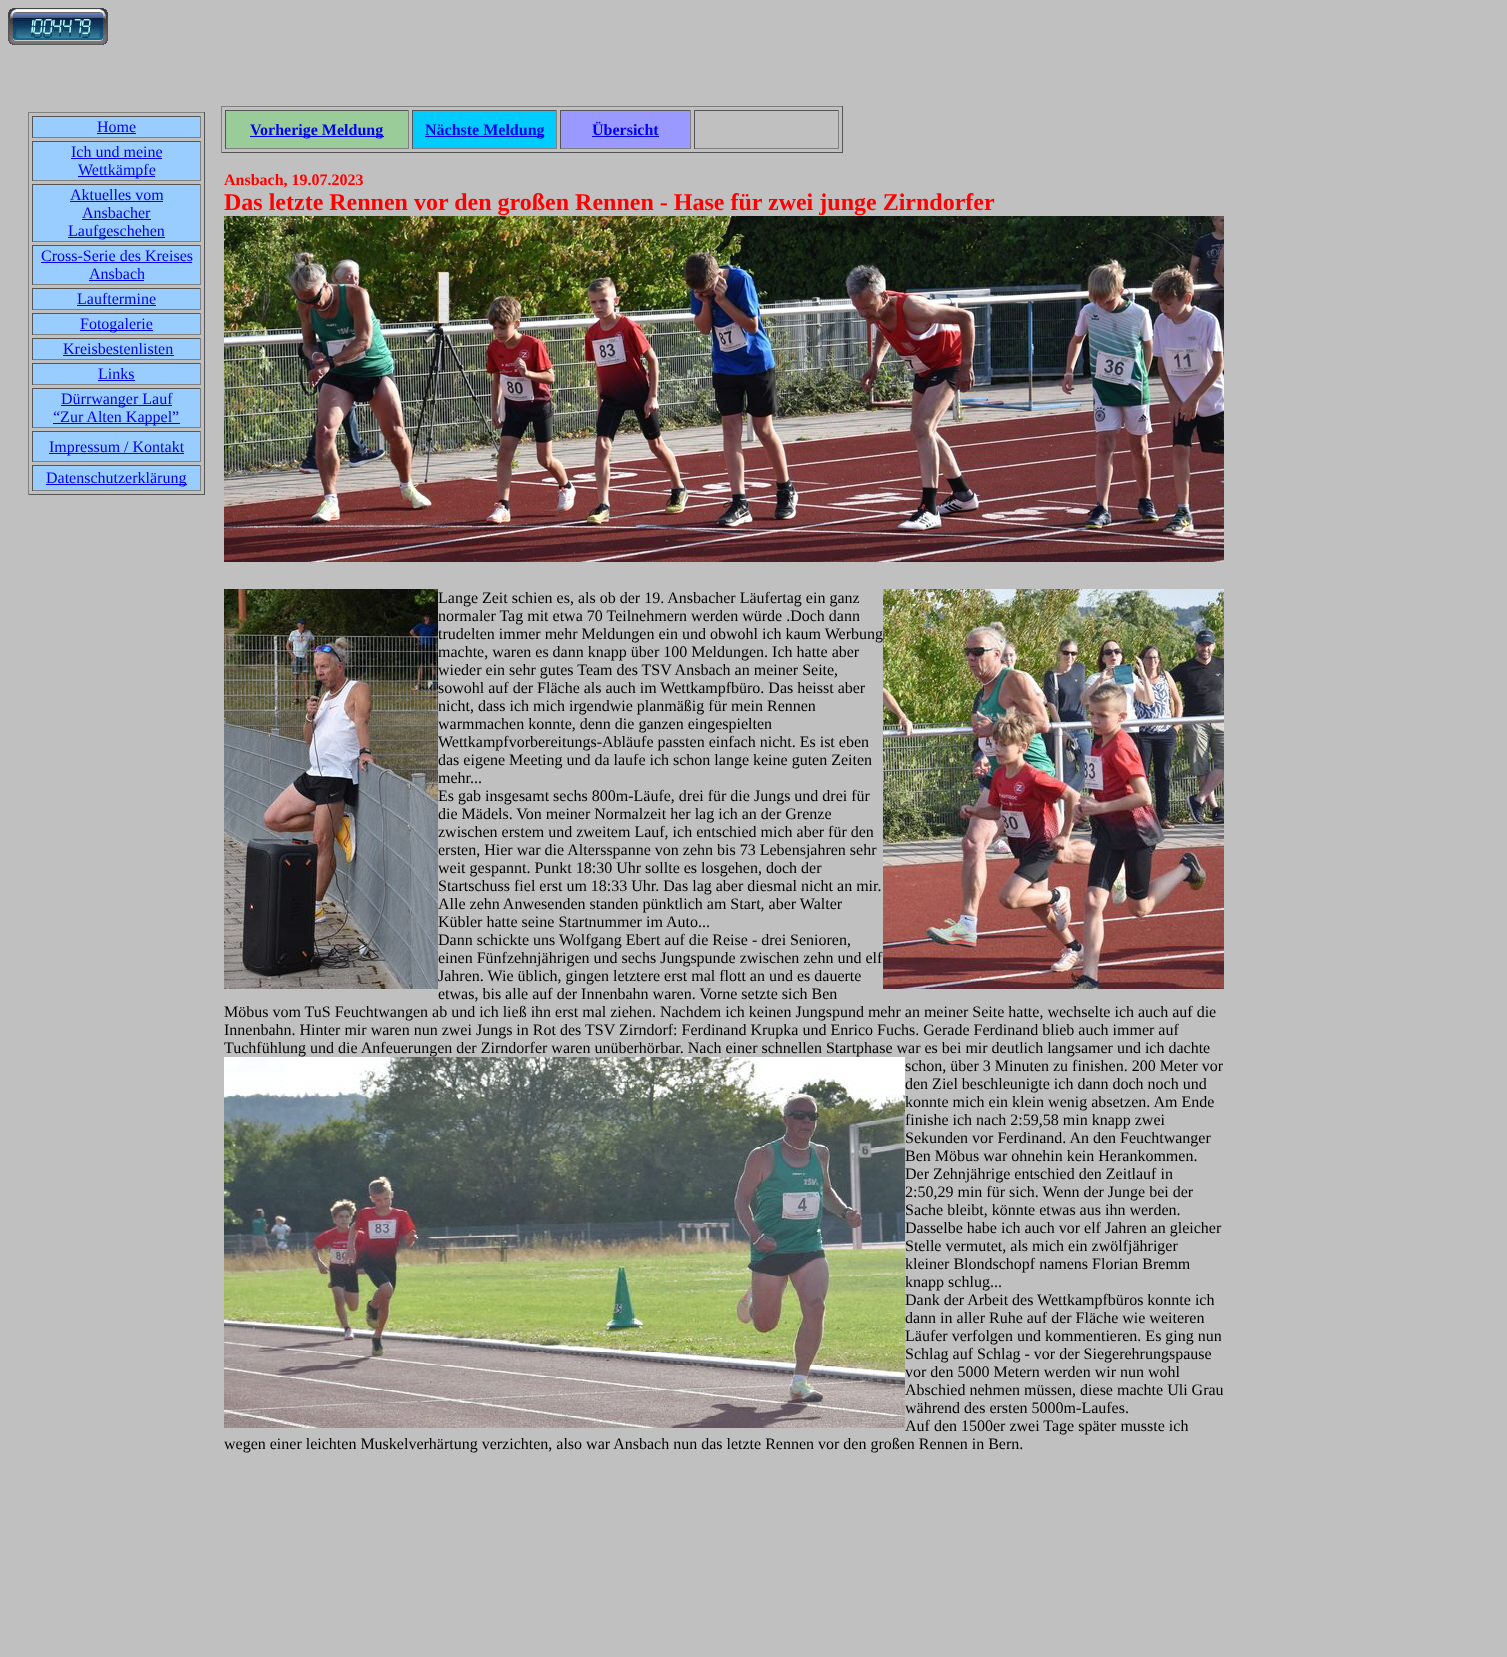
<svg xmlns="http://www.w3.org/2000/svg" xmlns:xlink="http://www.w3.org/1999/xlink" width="1507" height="1657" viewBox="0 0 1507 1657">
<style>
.cls-1{font:16px Liberation Serif;fill:#0000ee}
.cls-2{font:bold 16px Liberation Serif;fill:#0000ee}
.cls-3{font:bold 16px Liberation Serif;fill:#ff0000}
.cls-4{font:bold 24px Liberation Serif;fill:#ff0000}
.cls-5{font:16px Liberation Serif;fill:#000000}
</style>
<rect width="100%" height="100%" fill="#c0c0c0"/>
<image xlink:href="image0.png" x="8" y="8" width="100" height="37"/>
<rect fill="#808080" x="28" y="112" width="177" height="1"/>
<rect fill="#555555" x="204" y="112" width="1" height="383"/>
<rect fill="#555555" x="28" y="494" width="177" height="1"/>
<rect fill="#808080" x="28" y="112" width="1" height="383"/>
<rect fill="#99ccff" x="33" y="117" width="167" height="20"/>
<rect fill="#555555" x="32" y="116" width="169" height="1"/>
<rect fill="#808080" x="200" y="116" width="1" height="22"/>
<rect fill="#808080" x="32" y="137" width="169" height="1"/>
<rect fill="#555555" x="32" y="116" width="1" height="22"/>
<rect fill="#0000ee" x="97" y="133" width="39" height="1"/>
<rect fill="#99ccff" x="33" y="142" width="167" height="38"/>
<rect fill="#555555" x="32" y="141" width="169" height="1"/>
<rect fill="#808080" x="200" y="141" width="1" height="40"/>
<rect fill="#808080" x="32" y="180" width="169" height="1"/>
<rect fill="#555555" x="32" y="141" width="1" height="40"/>
<rect fill="#0000ee" x="71" y="158" width="91" height="1"/>
<rect fill="#0000ee" x="78" y="176" width="77" height="1"/>
<rect fill="#99ccff" x="33" y="185" width="167" height="56"/>
<rect fill="#555555" x="32" y="184" width="169" height="1"/>
<rect fill="#808080" x="200" y="184" width="1" height="58"/>
<rect fill="#808080" x="32" y="241" width="169" height="1"/>
<rect fill="#555555" x="32" y="184" width="1" height="58"/>
<rect fill="#0000ee" x="70" y="201" width="93" height="1"/>
<rect fill="#0000ee" x="82" y="219" width="69" height="1"/>
<rect fill="#0000ee" x="68" y="237" width="97" height="1"/>
<rect fill="#99ccff" x="33" y="246" width="167" height="38"/>
<rect fill="#555555" x="32" y="245" width="169" height="1"/>
<rect fill="#808080" x="200" y="245" width="1" height="40"/>
<rect fill="#808080" x="32" y="284" width="169" height="1"/>
<rect fill="#555555" x="32" y="245" width="1" height="40"/>
<rect fill="#0000ee" x="41" y="262" width="151" height="1"/>
<rect fill="#0000ee" x="89" y="280" width="55" height="1"/>
<rect fill="#99ccff" x="33" y="289" width="167" height="20"/>
<rect fill="#555555" x="32" y="288" width="169" height="1"/>
<rect fill="#808080" x="200" y="288" width="1" height="22"/>
<rect fill="#808080" x="32" y="309" width="169" height="1"/>
<rect fill="#555555" x="32" y="288" width="1" height="22"/>
<rect fill="#0000ee" x="77" y="305" width="79" height="1"/>
<rect fill="#99ccff" x="33" y="314" width="167" height="20"/>
<rect fill="#555555" x="32" y="313" width="169" height="1"/>
<rect fill="#808080" x="200" y="313" width="1" height="22"/>
<rect fill="#808080" x="32" y="334" width="169" height="1"/>
<rect fill="#555555" x="32" y="313" width="1" height="22"/>
<rect fill="#0000ee" x="80" y="330" width="73" height="1"/>
<rect fill="#99ccff" x="33" y="339" width="167" height="20"/>
<rect fill="#555555" x="32" y="338" width="169" height="1"/>
<rect fill="#808080" x="200" y="338" width="1" height="22"/>
<rect fill="#808080" x="32" y="359" width="169" height="1"/>
<rect fill="#555555" x="32" y="338" width="1" height="22"/>
<rect fill="#0000ee" x="63" y="355" width="111" height="1"/>
<rect fill="#99ccff" x="33" y="364" width="167" height="20"/>
<rect fill="#555555" x="32" y="363" width="169" height="1"/>
<rect fill="#808080" x="200" y="363" width="1" height="22"/>
<rect fill="#808080" x="32" y="384" width="169" height="1"/>
<rect fill="#555555" x="32" y="363" width="1" height="22"/>
<rect fill="#0000ee" x="98" y="380" width="37" height="1"/>
<rect fill="#99ccff" x="33" y="389" width="167" height="38"/>
<rect fill="#555555" x="32" y="388" width="169" height="1"/>
<rect fill="#808080" x="200" y="388" width="1" height="40"/>
<rect fill="#808080" x="32" y="427" width="169" height="1"/>
<rect fill="#555555" x="32" y="388" width="1" height="40"/>
<rect fill="#0000ee" x="61" y="405" width="111" height="1"/>
<rect fill="#0000ee" x="53" y="423" width="127" height="1"/>
<rect fill="#99ccff" x="33" y="432" width="167" height="29"/>
<rect fill="#555555" x="32" y="431" width="169" height="1"/>
<rect fill="#808080" x="200" y="431" width="1" height="31"/>
<rect fill="#808080" x="32" y="461" width="169" height="1"/>
<rect fill="#555555" x="32" y="431" width="1" height="31"/>
<rect fill="#0000ee" x="49" y="453" width="135" height="1"/>
<rect fill="#99ccff" x="33" y="466" width="167" height="24"/>
<rect fill="#555555" x="32" y="465" width="169" height="1"/>
<rect fill="#808080" x="200" y="465" width="1" height="26"/>
<rect fill="#808080" x="32" y="490" width="169" height="1"/>
<rect fill="#555555" x="32" y="465" width="1" height="26"/>
<rect fill="#0000ee" x="46" y="484" width="141" height="1"/>
<rect fill="#808080" x="221" y="106" width="622" height="1"/>
<rect fill="#555555" x="842" y="106" width="1" height="47"/>
<rect fill="#555555" x="221" y="152" width="622" height="1"/>
<rect fill="#808080" x="221" y="106" width="1" height="47"/>
<rect fill="#99cc99" x="226" y="111" width="182" height="37"/>
<rect fill="#555555" x="225" y="110" width="184" height="1"/>
<rect fill="#808080" x="408" y="110" width="1" height="39"/>
<rect fill="#808080" x="225" y="148" width="184" height="1"/>
<rect fill="#555555" x="225" y="110" width="1" height="39"/>
<rect fill="#0000ee" x="250" y="136" width="134" height="1"/>
<rect fill="#00ccff" x="413" y="111" width="143" height="37"/>
<rect fill="#555555" x="412" y="110" width="145" height="1"/>
<rect fill="#808080" x="556" y="110" width="1" height="39"/>
<rect fill="#808080" x="412" y="148" width="145" height="1"/>
<rect fill="#555555" x="412" y="110" width="1" height="39"/>
<rect fill="#0000ee" x="425" y="136" width="119" height="1"/>
<rect fill="#9999ff" x="561" y="111" width="129" height="37"/>
<rect fill="#555555" x="560" y="110" width="131" height="1"/>
<rect fill="#808080" x="690" y="110" width="1" height="39"/>
<rect fill="#808080" x="560" y="148" width="131" height="1"/>
<rect fill="#555555" x="560" y="110" width="1" height="39"/>
<rect fill="#0000ee" x="592" y="136" width="67" height="1"/>
<rect fill="#555555" x="694" y="110" width="145" height="1"/>
<rect fill="#808080" x="838" y="110" width="1" height="39"/>
<rect fill="#808080" x="694" y="148" width="145" height="1"/>
<rect fill="#555555" x="694" y="110" width="1" height="39"/>
<image xlink:href="image1.png" x="224" y="216" width="1000" height="346"/>
<image xlink:href="image2.png" x="224" y="589" width="214" height="400"/>
<image xlink:href="image3.png" x="883" y="589" width="341" height="400"/>
<image xlink:href="image4.png" x="224" y="1057" width="681" height="371"/>
<text class="cls-1" x="97" y="132">Home</text>
<text class="cls-1" x="71" y="157">Ich und meine</text>
<text class="cls-1" x="78" y="175">Wettkämpfe</text>
<text class="cls-1" x="70" y="200">Aktuelles vom</text>
<text class="cls-1" x="82" y="218">Ansbacher</text>
<text class="cls-1" x="68" y="236">Laufgeschehen</text>
<text class="cls-1" x="41" y="261">Cross-Serie des Kreises</text>
<text class="cls-1" x="89" y="279">Ansbach</text>
<text class="cls-1" x="77" y="304">Lauftermine</text>
<text class="cls-1" x="80" y="329">Fotogalerie</text>
<text class="cls-1" x="63" y="354">Kreisbestenlisten</text>
<text class="cls-1" x="98" y="379">Links</text>
<text class="cls-1" x="61" y="404">Dürrwanger Lauf</text>
<text class="cls-1" x="53" y="422">“Zur Alten Kappel”</text>
<text class="cls-1" x="49" y="452">Impressum / Kontakt</text>
<text class="cls-1" x="46" y="483">Datenschutzerklärung</text>
<text class="cls-2" x="250" y="135">Vorherige Meldung</text>
<text class="cls-2" x="425" y="135">Nächste Meldung</text>
<text class="cls-2" x="592" y="135">Übersicht</text>
<text class="cls-3" x="224" y="185">Ansbach, 19.07.2023</text>
<text class="cls-4" x="224" y="210">Das letzte Rennen vor den großen Rennen - Hase für zwei junge Zirndorfer</text>
<text class="cls-5"><tspan x="438" y="603">Lange Zeit schien es, als ob der 19. Ansbacher Läufertag ein ganz</tspan><tspan x="438" y="621">normaler Tag mit etwa 70 Teilnehmern werden würde .Doch dann</tspan><tspan x="438" y="639">trudelten immer mehr Meldungen ein und obwohl ich kaum Werbung</tspan><tspan x="438" y="657">machte, waren es dann knapp über 100 Meldungen. Ich hatte aber</tspan><tspan x="438" y="675">wieder ein sehr gutes Team des TSV Ansbach an meiner Seite,</tspan><tspan x="438" y="693">sowohl auf der Fläche als auch im Wettkampfbüro. Das heisst aber</tspan><tspan x="438" y="711">nicht, dass ich mich irgendwie planmäßig für mein Rennen</tspan><tspan x="438" y="729">warmmachen konnte, denn die ganzen eingespielten</tspan><tspan x="438" y="747">Wettkampfvorbereitungs-Abläufe passten einfach nicht. Es ist eben</tspan><tspan x="438" y="765">das eigene Meeting und da laufe ich schon lange keine guten Zeiten</tspan><tspan x="438" y="783">mehr...</tspan><tspan x="438" y="801">Es gab insgesamt sechs 800m-Läufe, drei für die Jungs und drei für</tspan><tspan x="438" y="819">die Mädels. Von meiner Normalzeit her lag ich an der Grenze</tspan><tspan x="438" y="837">zwischen erstem und zweitem Lauf, ich entschied mich aber für den</tspan><tspan x="438" y="855">ersten, Hier war die Altersspanne von zehn bis 73 Lebensjahren sehr</tspan><tspan x="438" y="873">weit gespannt. Punkt 18:30 Uhr sollte es losgehen, doch der</tspan><tspan x="438" y="891">Startschuss fiel erst um 18:33 Uhr. Das lag aber diesmal nicht an mir.</tspan><tspan x="438" y="909">Alle zehn Anwesenden standen pünktlich am Start, aber Walter</tspan><tspan x="438" y="927">Kübler hatte seine Startnummer im Auto...</tspan><tspan x="438" y="945">Dann schickte uns Wolfgang Ebert auf die Reise - drei Senioren,</tspan><tspan x="438" y="963">einen Fünfzehnjährigen und sechs Jungspunde zwischen zehn und elf</tspan><tspan x="438" y="981">Jahren. Wie üblich, gingen letztere erst mal flott an und es dauerte</tspan><tspan x="438" y="999">etwas, bis alle auf der Innenbahn waren. Vorne setzte sich Ben</tspan></text>
<text class="cls-5"><tspan x="224" y="1017">Möbus vom TuS Feuchtwangen ab und ich ließ ihn erst mal ziehen. Nachdem ich keinen Jungspund mehr an meiner Seite hatte, wechselte ich auch auf die</tspan><tspan x="224" y="1035">Innenbahn. Hinter mir waren nun zwei Jungs in Rot des TSV Zirndorf: Ferdinand Krupka und Enrico Fuchs. Gerade Ferdinand blieb auch immer auf</tspan><tspan x="224" y="1053">Tuchfühlung und die Anfeuerungen der Zirndorfer waren unüberhörbar. Nach einer schnellen Startphase war es bei mir deutlich langsamer und ich dachte</tspan></text>
<text class="cls-5"><tspan x="905" y="1071">schon, über 3 Minuten zu finishen. 200 Meter vor</tspan><tspan x="905" y="1089">den Ziel beschleunigte ich dann doch noch und</tspan><tspan x="905" y="1107">konnte mich ein klein wenig absetzen. Am Ende</tspan><tspan x="905" y="1125">finishe ich nach 2:59,58 min knapp zwei</tspan><tspan x="905" y="1143">Sekunden vor Ferdinand. An den Feuchtwanger</tspan><tspan x="905" y="1161">Ben Möbus war ohnehin kein Herankommen.</tspan><tspan x="905" y="1179">Der Zehnjährige entschied den Zeitlauf in</tspan><tspan x="905" y="1197">2:50,29 min für sich. Wenn der Junge bei der</tspan><tspan x="905" y="1215">Sache bleibt, könnte etwas aus ihn werden.</tspan><tspan x="905" y="1233">Dasselbe habe ich auch vor elf Jahren an gleicher</tspan><tspan x="905" y="1251">Stelle vermutet, als mich ein zwölfjähriger</tspan><tspan x="905" y="1269">kleiner Blondschopf namens Florian Bremm</tspan><tspan x="905" y="1287">knapp schlug...</tspan><tspan x="905" y="1305">Dank der Arbeit des Wettkampfbüros konnte ich</tspan><tspan x="905" y="1323">dann in aller Ruhe auf der Fläche wie weiteren</tspan><tspan x="905" y="1341">Läufer verfolgen und kommentieren. Es ging nun</tspan><tspan x="905" y="1359">Schlag auf Schlag - vor der Siegerehrungspause</tspan><tspan x="905" y="1377">vor den 5000 Metern werden wir nun wohl</tspan><tspan x="905" y="1395">Abschied nehmen müssen, diese machte Uli Grau</tspan><tspan x="905" y="1413">während des ersten 5000m-Laufes.</tspan><tspan x="905" y="1431">Auf den 1500er zwei Tage später musste ich</tspan></text>
<text class="cls-5" x="224" y="1449">wegen einer leichten Muskelverhärtung verzichten, also war Ansbach nun das letzte Rennen vor den großen Rennen in Bern.</text>
</svg>
